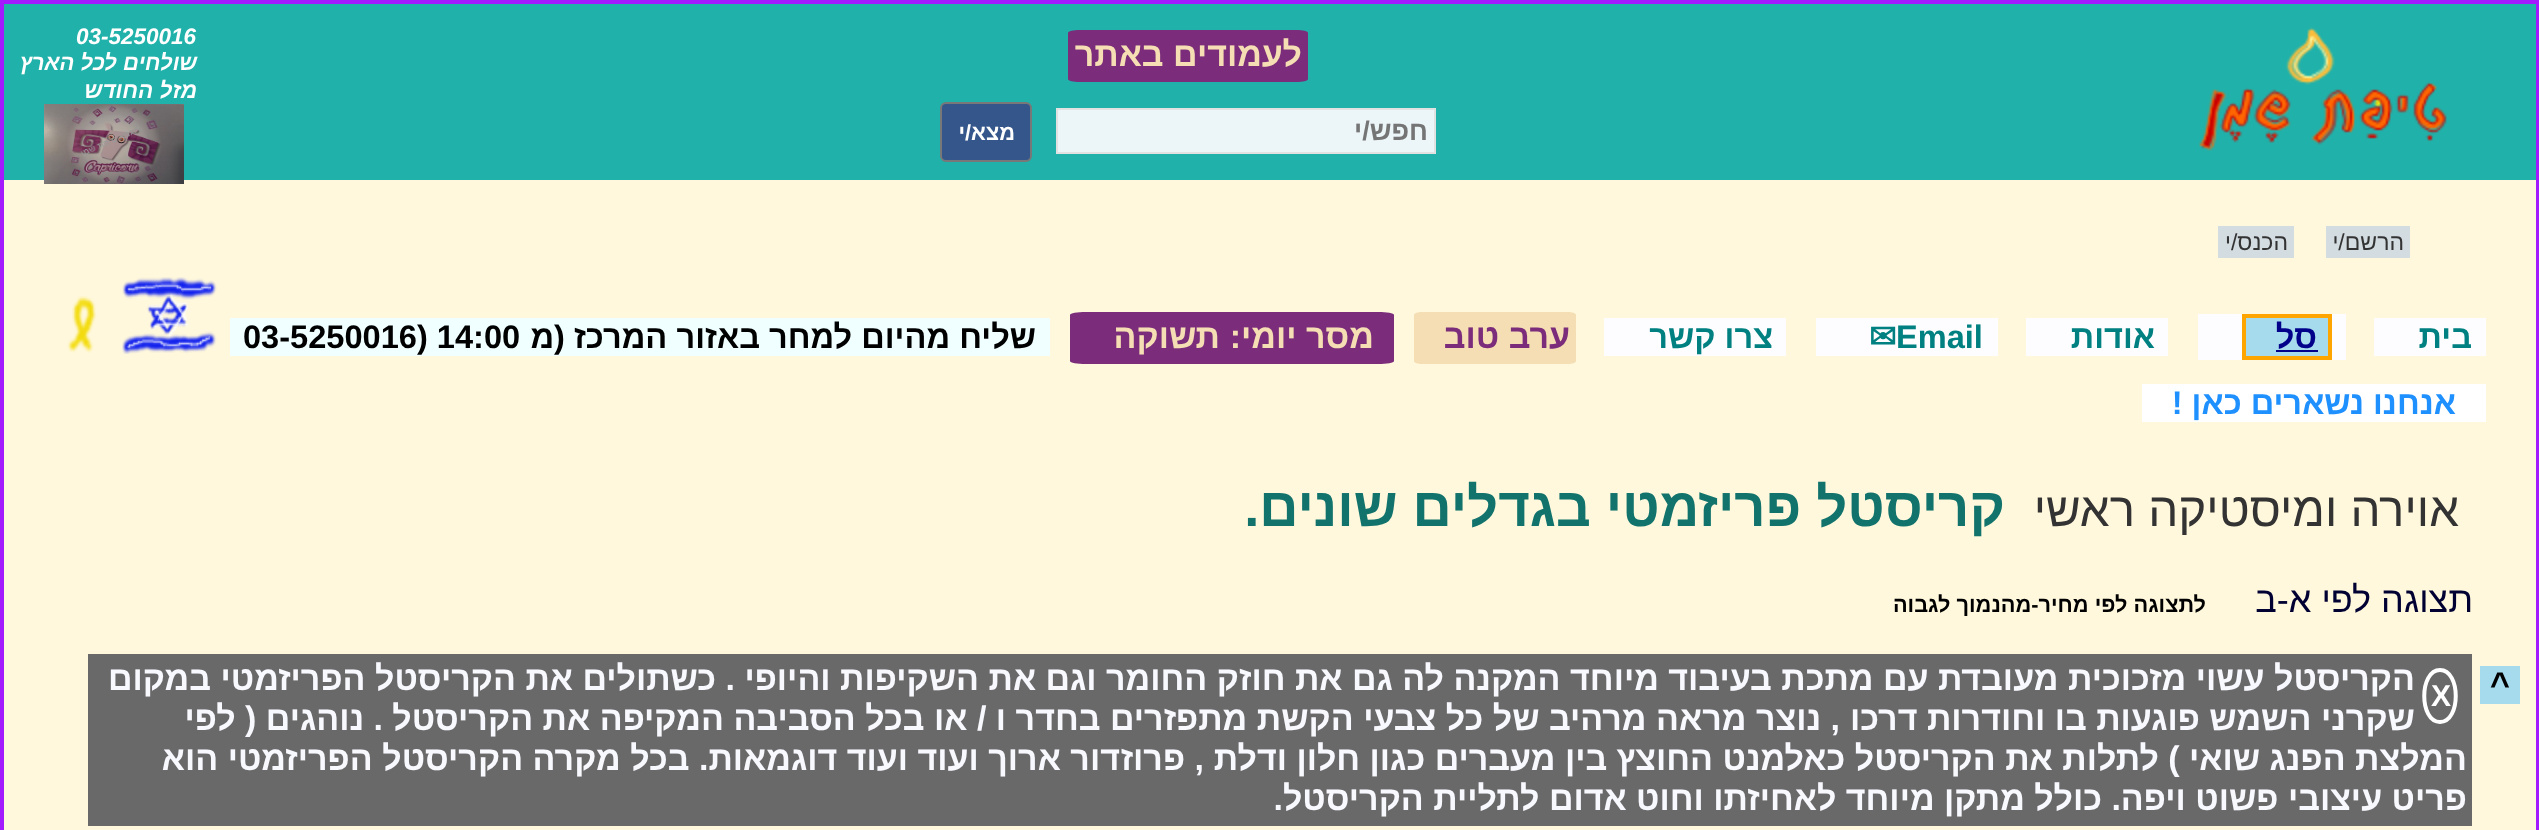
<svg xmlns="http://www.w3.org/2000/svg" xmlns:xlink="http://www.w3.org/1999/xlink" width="2539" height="830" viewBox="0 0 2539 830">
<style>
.cls-1{font:bold 34px Liberation Sans;direction:rtl;fill:#f5deb3}
.cls-2{font:bold 27px Liberation Sans;direction:rtl;fill:#757575}
.cls-3{font:bold 21.75px Liberation Sans;direction:rtl;fill:#ffffff}
.cls-4{font:italic bold 22.5px Liberation Sans;fill:#ffffff}
.cls-5{font:italic bold 22px Liberation Sans;direction:rtl;fill:#ffffff}
.cls-6{font:italic bold 22.5px Liberation Sans;direction:rtl;fill:#ffffff}
.cls-7{font:23px Liberation Sans;direction:rtl;fill:#333333}
.cls-8{font:bold 32.6px Liberation Sans;direction:rtl;fill:#008080}
.cls-9{font:bold 32.6px Liberation Sans;direction:rtl;fill:#00008b}
.cls-10{font:bold 32.6px Liberation Sans;fill:#008080}
.cls-11{font:bold 32.6px DejaVu Sans;fill:#008080}
.cls-12{font:bold 34px Liberation Sans;direction:rtl;fill:#7b2d7b}
.cls-13{font:bold 32.6px Liberation Sans;direction:rtl;fill:#000000}
.cls-14{font:bold 32.6px Liberation Sans;fill:#000000}
.cls-15{font:bold 32.6px Liberation Sans;direction:rtl;fill:#1e90ff}
.cls-16{font:47.5px Liberation Sans;direction:rtl;fill:#333333}
.cls-17{font:bold 54.4px Liberation Sans;direction:rtl;fill:#12736d}
.cls-18{font:bold 34px Liberation Sans;fill:#000000}
.cls-19{font:36px Liberation Sans;direction:rtl;fill:#000033}
.cls-20{font:bold 21.75px Liberation Sans;direction:rtl;fill:#000000}
.cls-21{font:bold 30px Liberation Sans;fill:#ffffff}
.cls-22{font:bold 34px Liberation Sans;direction:rtl;fill:#f8f8ff}
</style>
<rect width="100%" height="100%" fill="#fff8dc"/>
<rect fill="none" stroke="#a31aff" stroke-width="4" x="2" y="2" width="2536" height="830"/>
<rect fill="#20b2aa" x="4" y="4" width="2532" height="176"/>
<image xlink:href="image0.png" x="2199" y="27" width="248" height="124"/>
<path fill="#7b2d7b" d="M1080 30H1296C1303 30 1308 31 1308 33V79C1308 81 1303 82 1296 82H1080C1073 82 1068 81 1068 79V33C1068 31 1073 30 1080 30Z"/>
<rect fill="#ecf5f8" stroke="#e2e2e2" stroke-width="2" x="1057" y="109" width="378" height="44"/>
<rect fill="#34568b" stroke="#787878" stroke-width="2" x="941" y="103" width="90" height="58" rx="5"/>
<image xlink:href="image1.png" x="44" y="104" width="140" height="80"/>
<rect fill="#d3dce0" x="2326" y="226" width="84" height="32"/>
<rect fill="#d3dce0" x="2218" y="226" width="76" height="32"/>
<rect fill="#fdfdff" x="2374" y="318" width="112" height="38"/>
<rect fill="#fdfdff" x="2198" y="314" width="148" height="46"/>
<rect fill="#a6dbed" stroke="#ffa500" stroke-width="4" x="2244" y="316" width="86" height="42"/>
<rect fill="#00008b" x="2276" y="350" width="42" height="2"/>
<rect fill="#fdfdff" x="2026" y="318" width="142" height="38"/>
<rect fill="#fdfdff" x="1816" y="318" width="182" height="38"/>
<rect fill="#fdfdff" x="1604" y="318" width="182" height="38"/>
<path fill="#f5deb3" d="M1422 312H1568C1572 312 1576 313 1576 315V361C1576 363 1572 364 1568 364H1422C1418 364 1414 363 1414 361V315C1414 313 1418 312 1422 312Z"/>
<path fill="#7b2d7b" d="M1086 312H1378C1387 312 1394 313 1394 315V361C1394 363 1387 364 1378 364H1086C1077 364 1070 363 1070 361V315C1070 313 1077 312 1086 312Z"/>
<rect fill="#f0ffff" x="230" y="318" width="820" height="38"/>
<image xlink:href="image2.png" x="122" y="277" width="95" height="77"/>
<image xlink:href="image3.png" x="67" y="296" width="30" height="57"/>
<rect fill="#ffffff" x="2142" y="384" width="344" height="38"/>
<rect fill="#a6dbed" x="2480" y="666" width="40" height="38"/>
<rect fill="#696969" x="88" y="654" width="2384" height="172"/>
<path fill="none" stroke="#ffffff" stroke-width="4" d="M2440 670C2461 670 2461 722 2440 722C2419 722 2419 670 2440 670Z"/>
<text class="cls-1" x="1302" y="66">לעמודים באתר</text>
<text class="cls-2" x="1428" y="140">חפש/י</text>
<text class="cls-3" x="1015" y="140">מצא/י</text>
<text class="cls-4" x="76" y="44">03-5250016</text>
<text class="cls-5" x="197" y="70">שולחים לכל הארץ</text>
<text class="cls-6" x="197" y="98">מזל החודש</text>
<text class="cls-7" x="2404" y="250">הרשם/י</text>
<text class="cls-7" x="2288" y="250">הכנס/י</text>
<text class="cls-8" x="2472" y="348">בית</text>
<text class="cls-9" x="2317" y="348">סל</text>
<text class="cls-8" x="2155" y="348">אודות</text>
<text class="cls-10" x="1896" y="348">Email</text>
<text class="cls-11" x="1869" y="348">✉</text>
<text class="cls-8" x="1773" y="348">צרו קשר</text>
<text class="cls-12" x="1570" y="348">ערב טוב</text>
<text class="cls-1" x="1374" y="348">מסר יומי:</text>
<text class="cls-1" x="1220" y="348">תשוקה</text>
<text class="cls-13" x="1036" y="348">שליח מהיום למחר באזור המרכז (מ</text>
<text class="cls-14" x="243" y="348">03-5250016) 14:00</text>
<text class="cls-15" x="2456" y="414">אנחנו נשארים כאן !</text>
<text class="cls-16" x="2459" y="526">אוירה ומיסטיקה ראשי</text>
<text class="cls-17" x="2005" y="526">קריסטל פריזמטי בגדלים שונים.</text>
<text class="cls-18" x="2490" y="696">^</text>
<text class="cls-19" x="2473" y="612">תצוגה לפי א-ב</text>
<text class="cls-20" x="2206" y="612">לתצוגה לפי מחיר-מהנמוך לגבוה</text>
<text class="cls-21" x="2431" y="706">X</text>
<text class="cls-22" x="2415" y="690">הקריסטל עשוי מזכוכית מעובדת עם מתכת בעיבוד מיוחד המקנה לה גם את חוזק החומר וגם את השקיפות והיופי</text>
<text class="cls-22" x="735" y="690">. כשתולים את הקריסטל הפריזמטי במקום</text>
<text class="cls-22" x="2415" y="730">שקרני השמש פוגעות בו וחודרות דרכו</text>
<text class="cls-22" x="1840" y="730">, נוצר מראה מרהיב של כל צבעי הקשת מתפזרים בחדר ו / או בכל הסביבה המקיפה את הקריסטל</text>
<text class="cls-22" x="383" y="730">. נוהגים ( לפי</text>
<text class="cls-22" x="2467" y="770">המלצת הפנג שואי ) לתלות את הקריסטל כאלמנט החוצץ בין מעברים כגון חלון ודלת</text>
<text class="cls-22" x="1204" y="770">, פרוזדור ארוך ועוד ועוד דוגמאות. בכל מקרה הקריסטל הפריזמטי הוא</text>
<text class="cls-22" x="2467" y="810">פריט עיצובי פשוט ויפה.</text>
<text class="cls-22" x="2102" y="810">כולל מתקן מיוחד לאחיזתו וחוט אדום לתליית הקריסטל.</text>
</svg>
